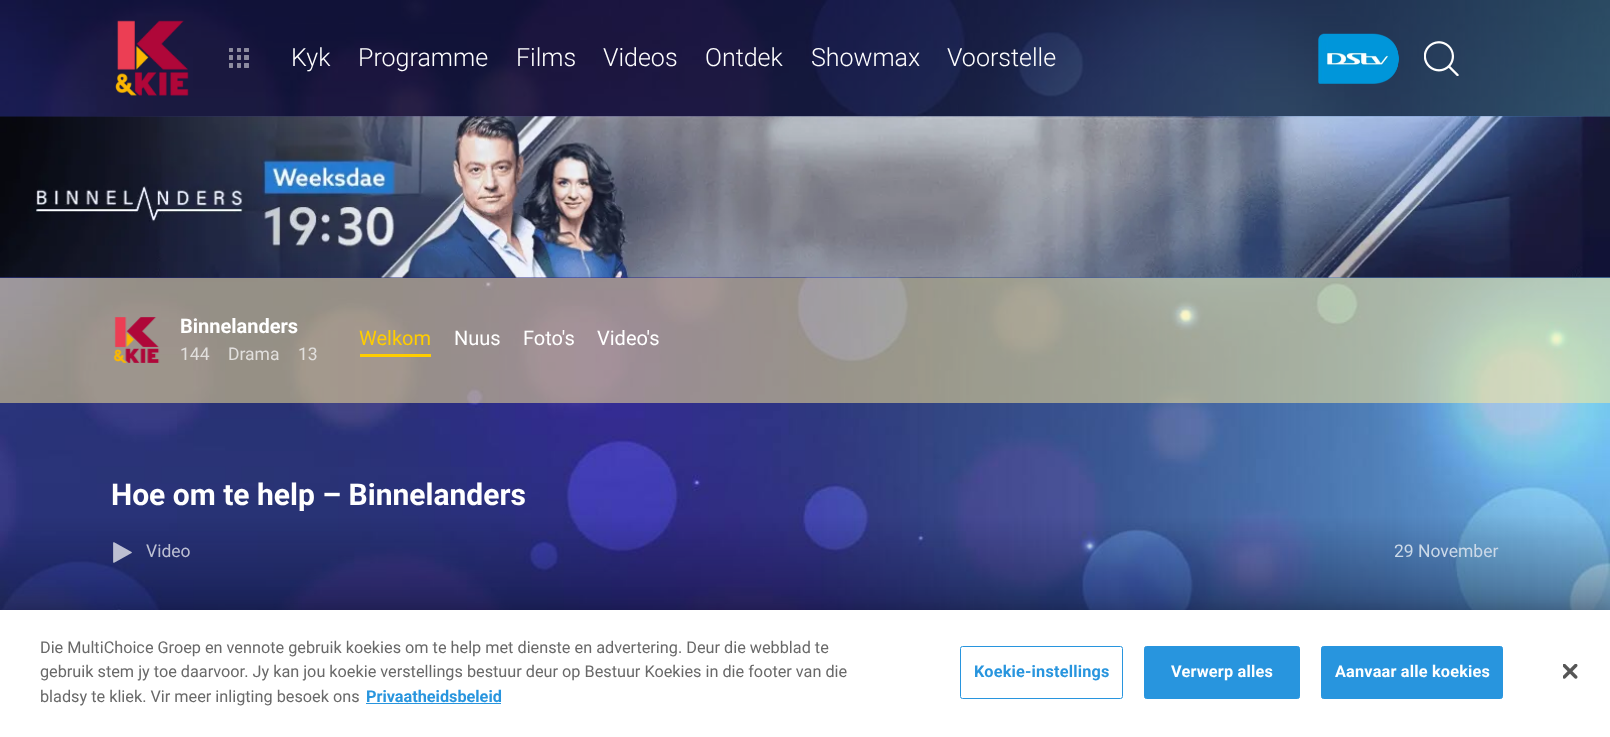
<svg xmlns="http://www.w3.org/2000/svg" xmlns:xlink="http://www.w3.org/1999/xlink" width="1610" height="737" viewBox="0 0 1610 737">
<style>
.cls-1{font:300 25px Roboto;fill:#ffffff}
.cls-2{font:bold 20px Roboto;fill:#ffffff}
.cls-3{font:17.5px Roboto;fill:#e1dfdd}
.cls-4{font:20px Roboto;fill:#ffcd00}
.cls-5{font:20px Roboto;fill:#ffffff}
.cls-6{font:bold 30px Roboto;fill:#ffffff}
.cls-7{font:17.5px Roboto;fill:#bdc0d3}
.cls-8{font:17.5px Roboto;fill:#cbd9e8}
.cls-9{font:16.25px Roboto;fill:#696969}
.cls-10{font:bold 16.25px Roboto;fill:#2895de}
.cls-11{font:bold 16.25px Roboto;letter-spacing:0.2px;fill:#2895de}
.cls-12{font:bold 16.25px Roboto;letter-spacing:0.2px;fill:#ffffff}
</style>
<rect width="100%" height="100%" fill="#081031"/>
<image xlink:href="image0.png" x="0" y="0" width="1610" height="610"/>
<rect fill="#000000" fill-opacity="0.5" x="0" y="0" width="1610" height="116"/>
<image xlink:href="image1.png" x="115" y="20" width="74" height="76"/>
<image xlink:href="image2.png" x="229" y="48" width="20" height="20"/>
<image xlink:href="image3.png" x="1318" y="33" width="81" height="51"/>
<image xlink:href="image4.png" x="1424" y="41" width="35" height="35"/>
<image xlink:href="image5.png" x="0" y="116" width="1610" height="162"/>
<rect fill="#ffcd00" fill-opacity="0.3" x="0" y="278" width="1610" height="125"/>
<rect fill="#ffffff" fill-opacity="0.3" x="0" y="278" width="1610" height="125"/>
<image xlink:href="image6.png" x="113" y="317" width="47" height="46"/>
<rect fill="#ffcd00" x="360" y="354" width="71" height="3"/>
<image xlink:href="image7.png" x="113" y="542" width="19" height="21"/>
<rect fill="#000000" fill-opacity="0.2" filter="blur(11px)" x="0" y="610" width="1610" height="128"/>
<rect fill="#ffffff" x="0" y="610" width="1610" height="127"/>
<rect fill="#2895de" x="366" y="703" width="135" height="1"/>
<rect fill="none" stroke="#2895de" x="960.5" y="646.5" width="162" height="52" rx="2"/>
<rect fill="#2895de" stroke="#2895de" x="1144.5" y="646.5" width="155" height="52" rx="2"/>
<rect fill="#2895de" stroke="#2895de" x="1321.5" y="646.5" width="181" height="52" rx="2"/>
<image xlink:href="image8.png" x="1563" y="664" width="15" height="15"/>
<text class="cls-1" x="291" y="66">Kyk</text>
<text class="cls-1" x="358" y="66">Programme</text>
<text class="cls-1" x="516" y="66">Films</text>
<text class="cls-1" x="603" y="66">Videos</text>
<text class="cls-1" x="705" y="66">Ontdek</text>
<text class="cls-1" x="811" y="66">Showmax</text>
<text class="cls-1" x="947" y="66">Voorstelle</text>
<text class="cls-2" x="180" y="333">Binnelanders</text>
<text class="cls-3" x="180" y="360">144</text>
<text class="cls-3" x="228" y="360">Drama</text>
<text class="cls-3" x="298" y="360">13</text>
<text class="cls-4" x="359" y="345">Welkom</text>
<text class="cls-5" x="454" y="345">Nuus</text>
<text class="cls-5" x="523" y="345">Foto's</text>
<text class="cls-5" x="597" y="345">Video's</text>
<text class="cls-6" x="111" y="505">Hoe om te help – Binnelanders</text>
<text class="cls-7" x="146" y="557">Video</text>
<text class="cls-8" x="1394" y="557">29 November</text>
<text class="cls-9"><tspan x="40" y="653">Die MultiChoice Groep en vennote gebruik koekies om te help met dienste en advertering. Deur die webblad te</tspan><tspan x="40" y="677">gebruik stem jy toe daarvoor. Jy kan jou koekie verstellings bestuur deur op Bestuur Koekies in die footer van die</tspan><tspan x="40" y="702">bladsy te kliek. Vir meer inligting besoek ons</tspan></text>
<text class="cls-10" x="366" y="702">Privaatheidsbeleid</text>
<text class="cls-11" x="974" y="677">Koekie-instellings</text>
<text class="cls-12" x="1171" y="677">Verwerp alles</text>
<text class="cls-12" x="1335" y="677">Aanvaar alle koekies</text>
</svg>
